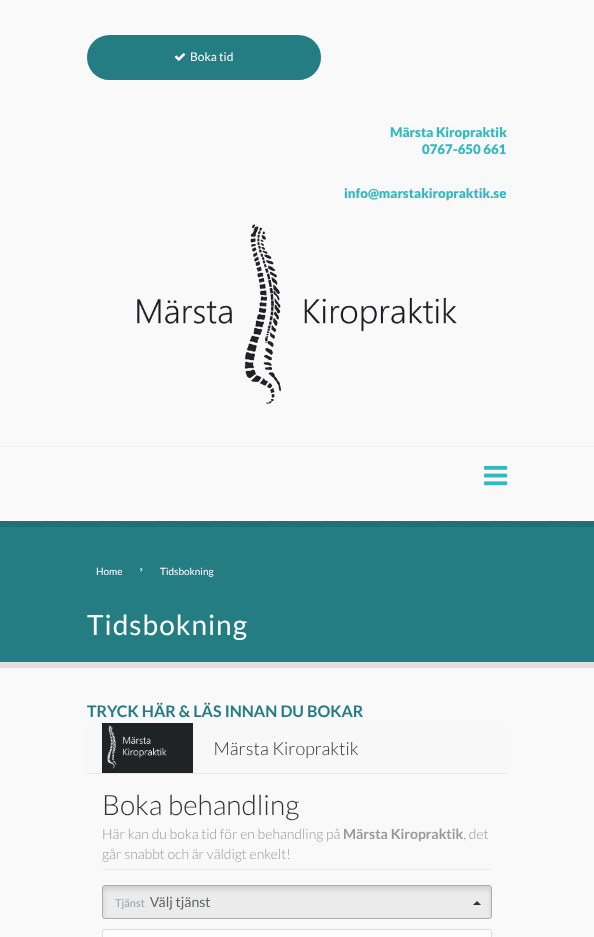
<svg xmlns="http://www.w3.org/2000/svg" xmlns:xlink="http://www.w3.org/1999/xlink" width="594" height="937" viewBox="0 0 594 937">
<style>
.cls-1{font:12px Lato;fill:#ffffff}
.cls-2{font:900 13.25px Lato;fill:#34b8c0}
.cls-3{font:10px Lato;fill:#ffffff}
.cls-4{font:28px Lato;letter-spacing:1px;fill:#ffffff}
.cls-5{font:bold 16px Lato;fill:#237d83}
</style>
<rect width="100%" height="100%" fill="#f9f9f9"/>
<image xlink:href="image0.png" x="0" y="520" width="589" height="1"/>
<rect fill="#237d83" stroke="#237d83" stroke-width="2" x="88" y="36" width="232" height="43" rx="21.5"/>
<image xlink:href="image1.png" x="174" y="53" width="12" height="8"/>
<image xlink:href="image2.png" x="137" y="224" width="320" height="180"/>
<rect fill="#eeeeee" x="0" y="446" width="594" height="1"/>
<image xlink:href="image3.png" x="484" y="465" width="24" height="21"/>
<rect fill="#e0e0e0" x="0" y="662" width="594" height="6"/>
<rect fill="#237d83" x="0" y="527" width="594" height="135"/>
<rect fill="#207176" x="0" y="521" width="594" height="6"/>
<image xlink:href="image4.png" x="140" y="567" width="3" height="5"/>
<image xlink:href="image5.png" x="87" y="723" width="420" height="214"/>
<text class="cls-1" x="190" y="61">Boka tid</text>
<text class="cls-2" x="390" y="137">Märsta Kiropraktik</text>
<text class="cls-2" x="422" y="154">0767-650 661</text>
<text class="cls-2" x="344" y="198">info@marstakiropraktik.se</text>
<text class="cls-3" x="96" y="575">Home</text>
<text class="cls-3" x="160" y="575">Tidsbokning</text>
<text class="cls-4" x="87" y="635">Tidsbokning</text>
<text class="cls-5" x="87" y="717">TRYCK HÄR &amp; LÄS INNAN DU BOKAR</text>
</svg>
